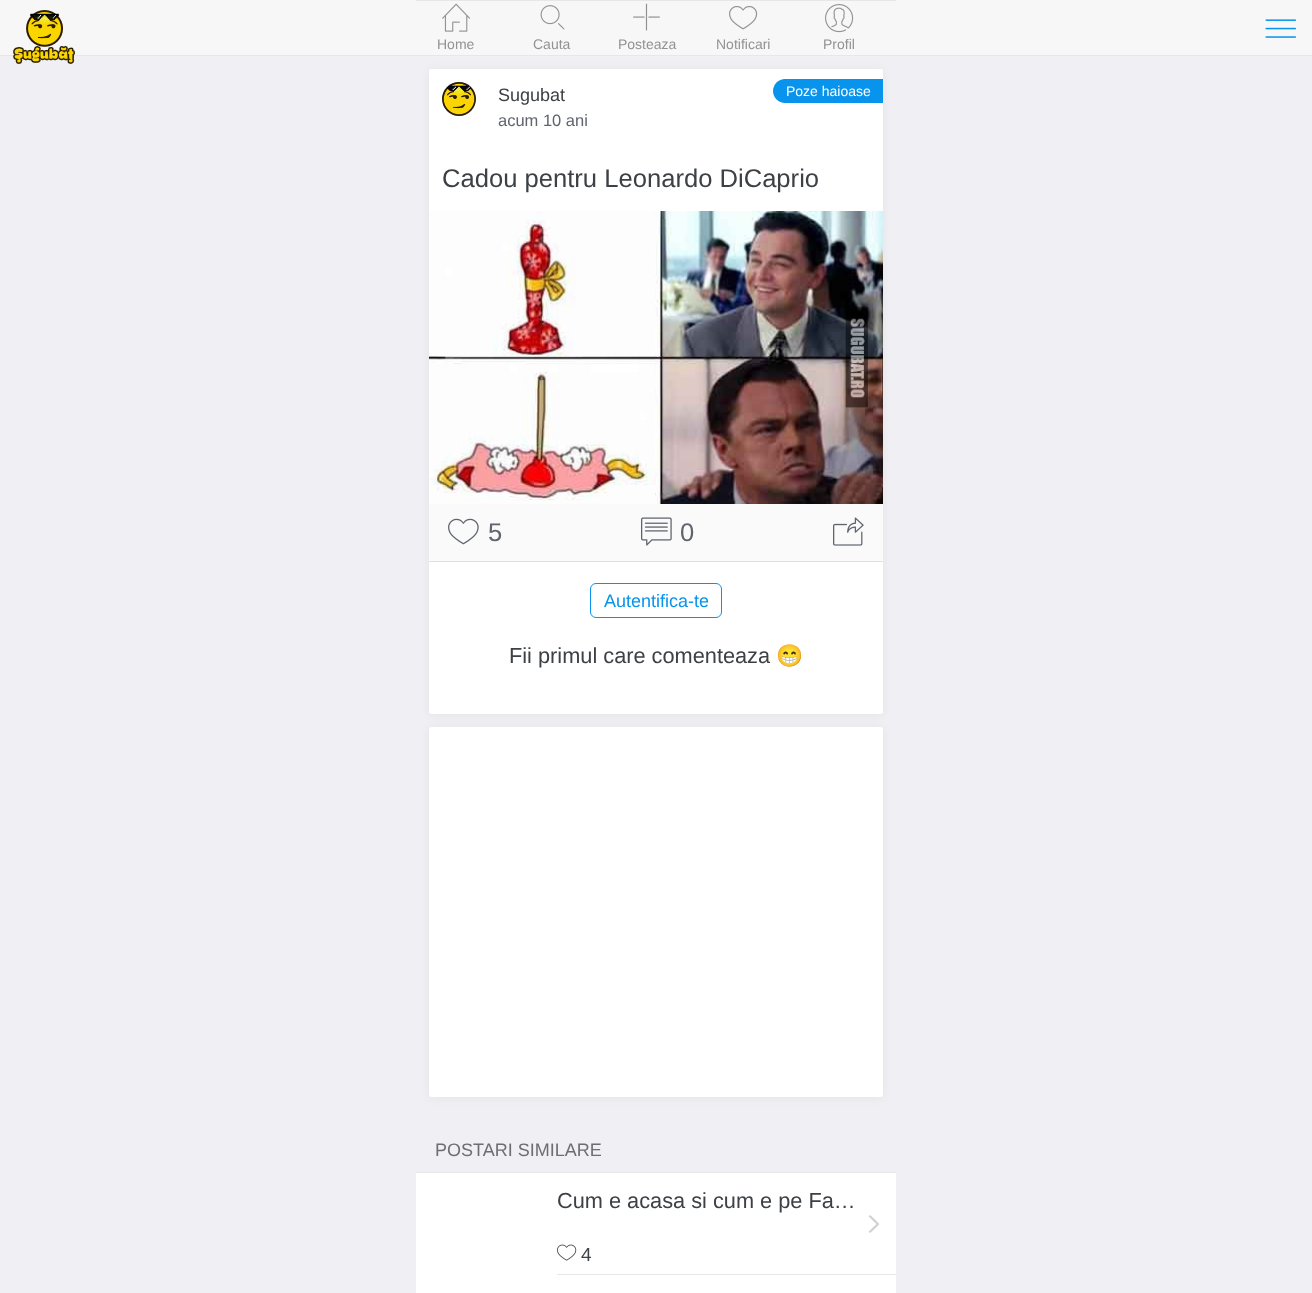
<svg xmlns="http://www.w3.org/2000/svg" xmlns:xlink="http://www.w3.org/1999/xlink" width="1312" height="1293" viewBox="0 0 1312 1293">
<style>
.cls-1{font:14px Liberation Sans;fill:#929292}
.cls-2{font:18px Liberation Sans;fill:#3d4145}
.cls-3{font:14px Liberation Sans;fill:#ffffff}
.cls-4{font:16.5px Liberation Sans;fill:#5f646e}
.cls-5{font:25.6px Liberation Sans;fill:#3d4145}
.cls-6{font:25.6px Liberation Sans;fill:#5f646e}
.cls-7{font:18px Liberation Sans;fill:#0894ec}
.cls-8{font:21.75px Liberation Sans;fill:#3d4145}
.cls-9{font:21.75px Noto Color Emoji;fill:#3d4145}
.cls-10{font:18px Liberation Sans;fill:#6d6d72}
.cls-11{font:19px Liberation Sans;fill:#3d4145}
</style>
<rect width="100%" height="100%" fill="#efeff4"/>
<rect fill="#000000" fill-opacity="0.05" filter="blur(5px)" x="429" y="70" width="454" height="645" rx="2.5"/>
<rect fill="#f7f7f8" x="0" y="0" width="1312" height="55"/>
<rect fill="#e7e7e7" x="0" y="55" width="1312" height="1"/>
<image xlink:href="image0.png" x="13" y="10" width="62" height="54"/>
<image xlink:href="image1.png" x="1265" y="19" width="32" height="19"/>
<rect fill="#e7e7e7" x="416" y="0" width="480" height="1"/>
<image xlink:href="image2.png" x="442" y="3" width="28" height="29"/>
<image xlink:href="image3.png" x="540" y="5" width="25" height="25"/>
<image xlink:href="image4.png" x="633" y="3" width="27" height="28"/>
<image xlink:href="image5.png" x="729" y="6" width="29" height="24"/>
<image xlink:href="image6.png" x="825" y="4" width="29" height="29"/>
<rect fill="#ffffff" x="429" y="69" width="454" height="645" rx="2.5"/>
<image xlink:href="image7.png" x="442" y="82" width="34" height="34"/>
<path fill="#0894ec" d="M785 79H883V103H785C778.5 103 773 97.5 773 91C773 84.5 778.5 79 785 79Z"/>
<image xlink:href="image8.png" x="429" y="211" width="454" height="293"/>
<path fill="#fafafa" d="M429 504H883V558.5C883 560 882 561 880.5 561H431.5C430 561 429 560 429 558.5Z"/>
<image xlink:href="image9.png" x="448" y="518" width="31" height="27"/>
<image xlink:href="image10.png" x="641" y="517" width="31" height="29"/>
<image xlink:href="image11.png" x="833" y="517" width="31" height="29"/>
<rect fill="#dfdfdf" x="429" y="561" width="454" height="1"/>
<rect fill="none" stroke="#0894ec" x="590.5" y="583.5" width="131" height="34" rx="5.5"/>
<rect fill="#000000" fill-opacity="0.05" filter="blur(5px)" x="429" y="728" width="454" height="370" rx="2.5"/>
<rect fill="#ffffff" x="429" y="727" width="454" height="370" rx="2.5"/>
<rect fill="#ffffff" x="416" y="1173" width="480" height="120"/>
<rect fill="#e7e7e7" x="416" y="1172" width="480" height="1"/>
<image xlink:href="image12.png" x="868" y="1215" width="12" height="18"/>
<image xlink:href="image13.png" x="557" y="1244" width="20" height="17"/>
<rect fill="#e7e7e7" x="557" y="1274" width="339" height="1"/>
<text class="cls-1" x="437" y="49">Home</text>
<text class="cls-1" x="533" y="49">Cauta</text>
<text class="cls-1" x="618" y="49">Posteaza</text>
<text class="cls-1" x="716" y="49">Notificari</text>
<text class="cls-1" x="823" y="49">Profil</text>
<text class="cls-2" x="498" y="101">Sugubat</text>
<text class="cls-3" x="786" y="96">Poze haioase</text>
<text class="cls-4" x="498" y="126">acum 10 ani</text>
<text class="cls-5" x="442" y="187">Cadou pentru Leonardo DiCaprio</text>
<text class="cls-6" x="488" y="541">5</text>
<text class="cls-6" x="680" y="541">0</text>
<text class="cls-7" x="604" y="607">Autentifica-te</text>
<text class="cls-8" x="509" y="663">Fii primul care comenteaza</text>
<text class="cls-9" x="776" y="663">😁</text>
<text class="cls-10" x="435" y="1156">POSTARI SIMILARE</text>
<text class="cls-8" x="557" y="1208">Cum e acasa si cum e pe Fa…</text>
<text class="cls-11" x="581" y="1261">4</text>
</svg>
